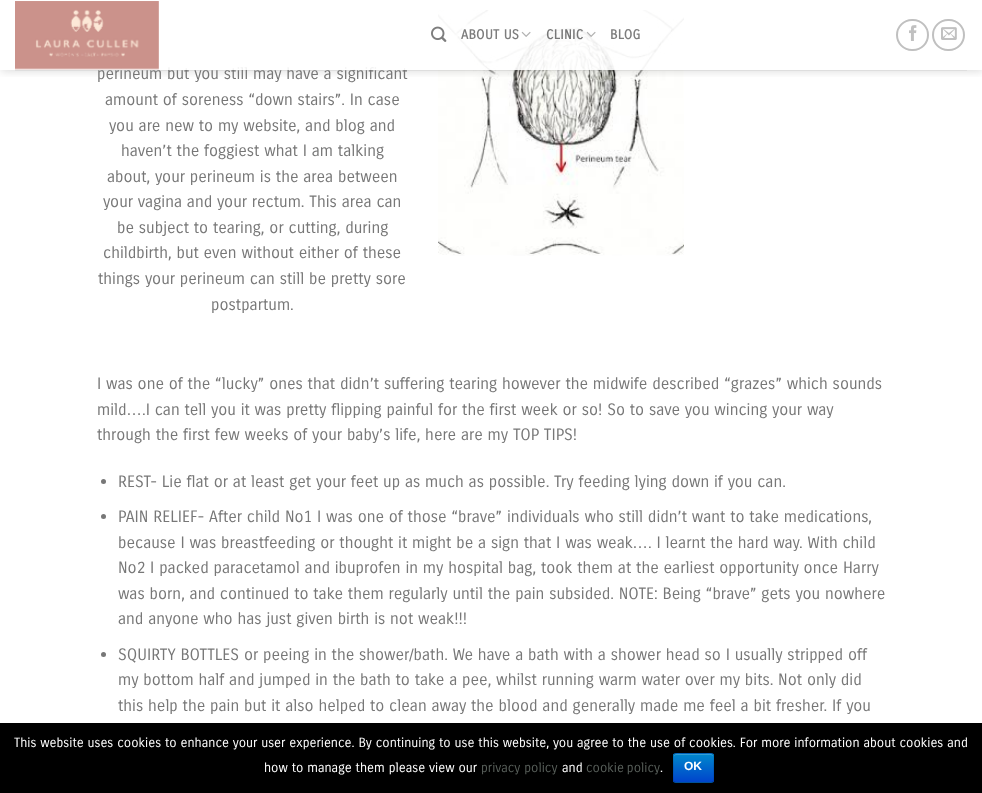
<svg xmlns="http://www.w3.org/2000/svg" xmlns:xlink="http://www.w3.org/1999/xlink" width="982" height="793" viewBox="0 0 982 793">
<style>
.cls-1{font:16px Carrois Gothic;fill:#777777}
.cls-2{font:bold 13px Carrois Gothic;letter-spacing:0.25px;fill:#7d7d7d}
.cls-3{font:bold 13px Carrois Gothic;letter-spacing:0.25px;fill:#777777}
.cls-4{font:16px Liberation Sans;fill:#777777}
.cls-5{font:13px Carrois Gothic;fill:#ffffff}
.cls-6{font:13px Carrois Gothic;fill:#585f5a}
.cls-7{font:bold 12px Liberation Sans;fill:#ffffff}
</style>
<defs>
<clipPath id="clip1"><rect x="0" y="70" width="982" height="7"/></clipPath>
<clipPath id="clip2"><rect x="673" y="753" width="41" height="30" rx="3"/></clipPath>
<linearGradient id="g1" gradientUnits="userSpaceOnUse" x1="694" y1="754" x2="694" y2="782"><stop offset="0" stop-color="#0088cc"/><stop offset="1" stop-color="#0044cc"/></linearGradient>
</defs>
<rect width="100%" height="100%" fill="#ffffff"/>
<image xlink:href="image6.png" x="438" y="10" width="246" height="246"/>
<g clip-path="url(#clip1)">
<rect fill="#000000" fill-opacity="0.15" filter="blur(5px)" x="1" y="1" width="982" height="70"/>
</g>
<rect fill="none" stroke="#c0c0c0" stroke-width="2" x="897" y="20" width="31" height="30" rx="15"/>
<image xlink:href="image4.png" x="909" y="25" width="8" height="16"/>
<rect fill="none" stroke="#c0c0c0" stroke-width="2" x="933" y="20" width="31" height="30" rx="15"/>
<image xlink:href="image5.png" x="941" y="27" width="16" height="13"/>
<rect fill="#777777" fill-opacity="0.1" x="15" y="70" width="952" height="1"/>
<circle fill="#777777" cx="103.5" cy="481.5" r="2.5"/>
<circle fill="#777777" cx="103.5" cy="516.5" r="2.5"/>
<circle fill="#777777" cx="103.5" cy="654.5" r="2.5"/>
<rect fill="#000000" x="0" y="723" width="982" height="70"/>
<rect fill="#006dcc" x="673" y="753" width="41" height="30" rx="3"/>
<g clip-path="url(#clip2)">
<rect fill="url(#g1)" x="673" y="754" width="41" height="28"/>
</g>
<path fill="#ffffff" fill-opacity="0.2" d="M676 755H711C712 755 713 756 713 757C713 752.5 709 754 705 754H682C678 754 674 752.5 674 757C674 756 675 755 676 755Z"/>
<path fill="none" stroke="#000000" stroke-opacity="0.25" d="M713 782L711 782.5H676L674 782"/>
<path fill="none" stroke="#000000" stroke-opacity="0.1" d="M674 782C672.5 780 673.5 770.5 673.5 768C673.5 754 670 753.5 682 753.5H705C717 753.5 713.5 754 713.5 768C713.5 770.5 714.5 780 713 782"/>
<text class="cls-1" x="97" y="79">perineum but you still may have a significant</text>
<rect fill="#ffffff" fill-opacity="0.9" x="120" y="10" width="564" height="60"/>
<text class="cls-2" x="610" y="39">BLOG</text>
<image xlink:href="image3.png" x="586" y="31" width="10" height="6"/>
<text class="cls-3" x="546" y="39">CLINIC</text>
<image xlink:href="image2.png" x="521" y="31" width="10" height="6"/>
<text class="cls-2" x="461" y="39">ABOUT US</text>
<image xlink:href="image1.png" x="431" y="26" width="16" height="16"/>
<image xlink:href="image0.png" x="15" y="1" width="144" height="69"/>
<text class="cls-1" x="105" y="105">amount of soreness “down stairs”. In case</text>
<text class="cls-1" x="109" y="131">you are new to my website, and blog and</text>
<text class="cls-1" x="121" y="156">haven’t the foggiest what I am talking</text>
<text class="cls-1" x="107" y="182">about, your perineum is the area between</text>
<text class="cls-1" x="103" y="207">your vagina and your rectum. This area can</text>
<text class="cls-1" x="117" y="233">be subject to tearing, or cutting, during</text>
<text class="cls-1" x="103" y="258">childbirth, but even without either of these</text>
<text class="cls-1" x="98" y="284">things your perineum can still be pretty sore</text>
<text class="cls-1" x="211" y="310">postpartum.</text>
<text class="cls-1"><tspan x="97" y="389">I was one of the “lucky” ones that didn’t suffering tearing however the midwife described “grazes” which sounds</tspan><tspan x="97" y="415">mild</tspan></text>
<text class="cls-4" x="126" y="415">…</text>
<text class="cls-1" x="142" y="415">.I can tell you it was pretty flipping painful for the first week or so! So to save you wincing your way</text>
<text class="cls-1" x="97" y="440">through the first few weeks of your baby’s life, here are my TOP TIPS!</text>
<text class="cls-1" x="118" y="487">REST- Lie flat or at least get your feet up as much as possible. Try feeding lying down if you can.</text>
<text class="cls-1"><tspan x="118" y="522">PAIN RELIEF- After child No1 I was one of those “brave” individuals who still didn’t want to take medications,</tspan><tspan x="118" y="548">because I was breastfeeding or thought it might be a sign that I was weak</tspan></text>
<text class="cls-4" x="632" y="548">…</text>
<text class="cls-1" x="648" y="548">. I learnt the hard way. With child</text>
<text class="cls-1"><tspan x="118" y="573">No2 I packed paracetamol and ibuprofen in my hospital bag, took them at the earliest opportunity once Harry</tspan><tspan x="118" y="599">was born, and continued to take them regularly until the pain subsided. NOTE: Being “brave” gets you nowhere</tspan><tspan x="118" y="624">and anyone who has just given birth is not weak!!!</tspan></text>
<text class="cls-1"><tspan x="118" y="660">SQUIRTY BOTTLES or peeing in the shower/bath. We have a bath with a shower head so I usually stripped off</tspan><tspan x="118" y="685">my bottom half and jumped in the bath to take a pee, whilst running warm water over my bits. Not only did</tspan><tspan x="118" y="711">this help the pain but it also helped to clean away the blood and generally made me feel a bit fresher. If you</tspan></text>
<text class="cls-5" x="14" y="747">This website uses cookies to enhance your user experience. By continuing to use this website, you agree to the use of cookies. For more information about cookies and</text>
<text class="cls-5" x="264" y="772">how to manage them please view our</text>
<text class="cls-6" x="481" y="772">privacy policy</text>
<text class="cls-5" x="562" y="772">and</text>
<text class="cls-6" x="586" y="772" word-spacing="-1">cookie policy</text>
<text class="cls-5" x="660" y="772">.</text>
<text class="cls-7" x="684" y="770">OK</text>
</svg>
